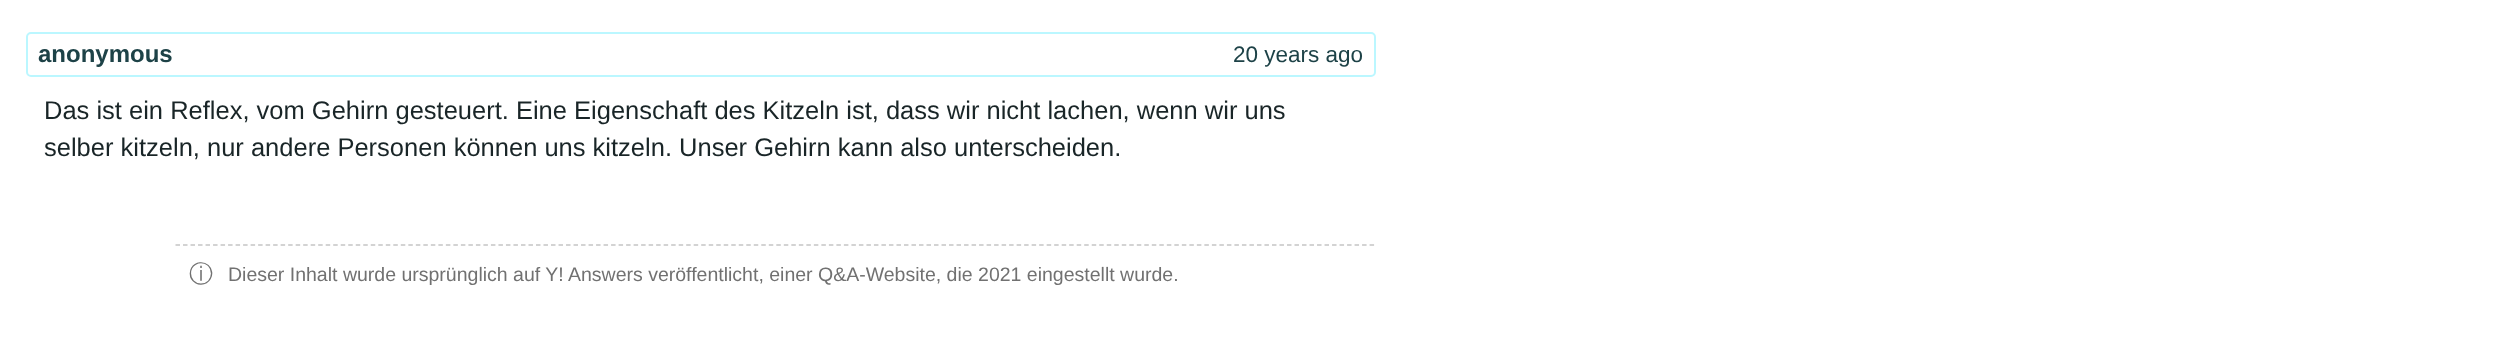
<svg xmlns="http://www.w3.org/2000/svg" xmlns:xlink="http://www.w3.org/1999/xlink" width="2516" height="337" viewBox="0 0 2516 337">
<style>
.cls-1{font:bold 24px Liberation Sans;fill:#1d4247}
.cls-2{font:22.5px Liberation Sans;fill:#1d4247}
.cls-3{font:25.5px Liberation Sans;fill:#192527}
.cls-4{font:500 24px WenQuanYi Zen Hei;fill:#717171}
.cls-5{font:19.5px Liberation Sans;fill:#717171}
</style>
<rect width="100%" height="100%" fill="#ffffff"/>
<rect fill="none" stroke="#bbf7ff" stroke-width="2" x="27" y="33" width="1348" height="43" rx="4"/>
<path fill="none" stroke="#c5c5c5" stroke-width="1.5" stroke-dasharray="4.5 3.01" d="M175.5 245H1375.5"/>
<text class="cls-1" x="38" y="62">anonymous</text>
<text class="cls-2" x="1233" y="62">20 years ago</text>
<text class="cls-3"><tspan x="44" y="119">Das ist ein Reflex, vom Gehirn gesteuert. Eine Eigenschaft des Kitzeln ist, dass wir nicht lachen, wenn wir uns</tspan><tspan x="44" y="156">selber kitzeln, nur andere Personen können uns kitzeln. Unser Gehirn kann also unterscheiden.</tspan></text>
<text class="cls-4" x="189" y="282">ⓘ</text>
<text class="cls-5" x="228" y="281">Dieser Inhalt wurde ursprünglich auf Y! Answers veröffentlicht, einer Q&amp;A-Website, die 2021 eingestellt wurde.</text>
</svg>
